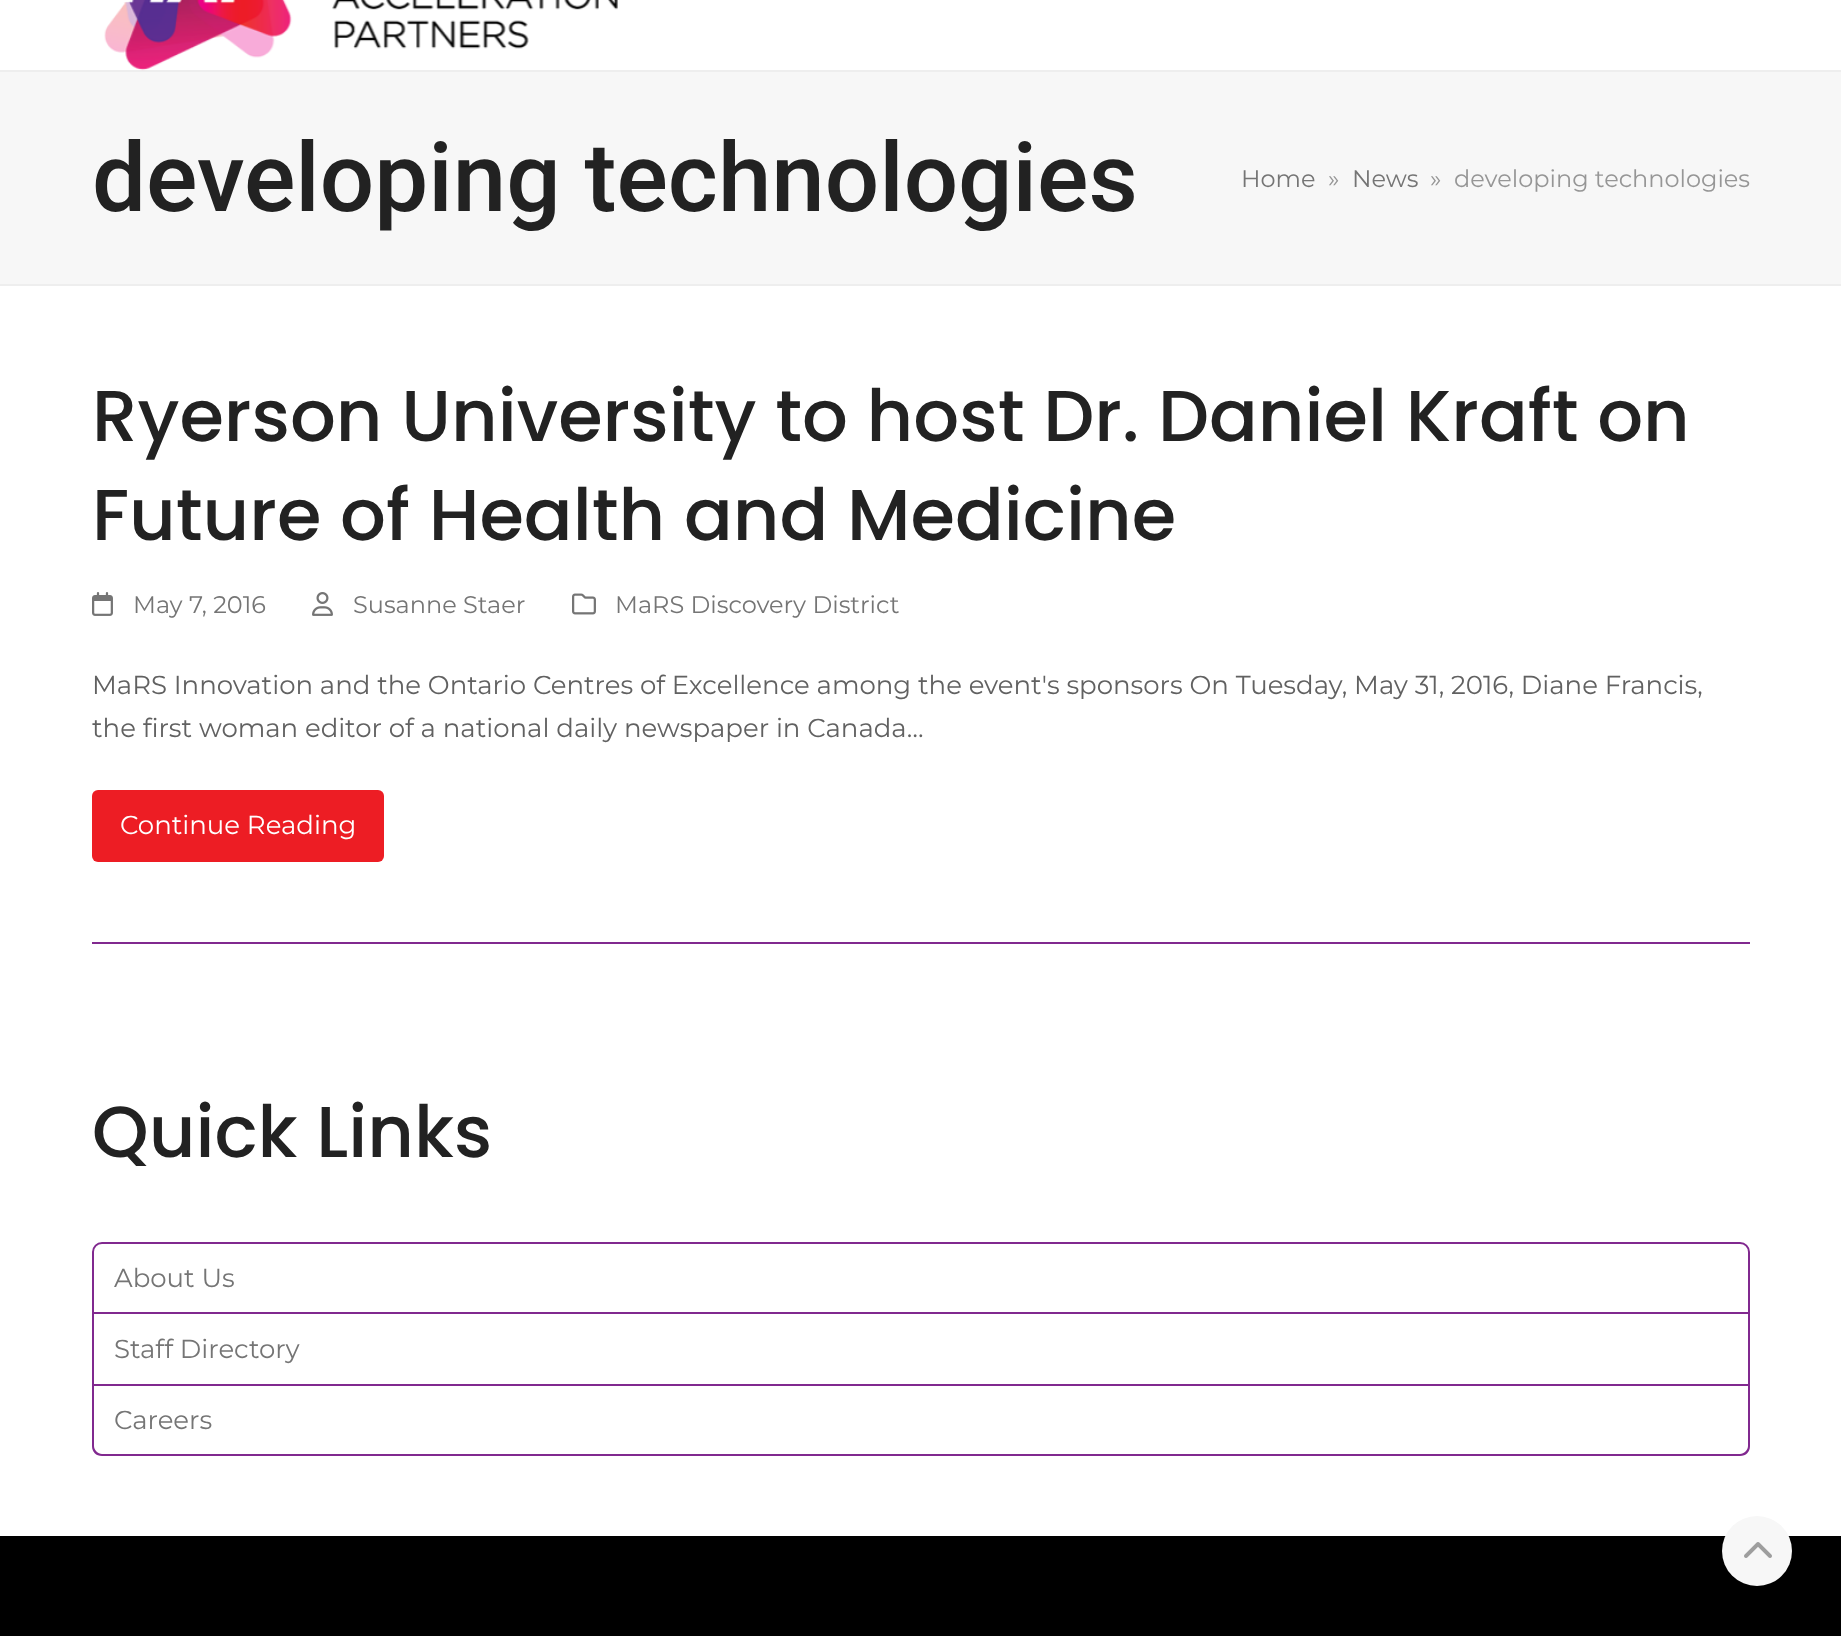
<svg xmlns="http://www.w3.org/2000/svg" xmlns:xlink="http://www.w3.org/1999/xlink" width="1841" height="1636" viewBox="0 0 1841 1636">
<style>
.cls-1{font:500 96px Roboto;fill:#222222}
.cls-2{font:24px Montserrat;fill:#757575}
.cls-3{font:24px Montserrat;fill:#969696}
.cls-4{font:500 72px Poppins;fill:#222222}
.cls-5{font:26px Montserrat;fill:#616161}
.cls-6{font:26px Montserrat;fill:#ffffff}
.cls-7{font:26px Montserrat;fill:#757575}
</style>
<rect width="100%" height="100%" fill="#ffffff"/>
<rect fill="#eeeeee" x="0" y="70" width="1841" height="2"/>
<image xlink:href="image0.png" x="104" y="0" width="514" height="71"/>
<rect fill="#f7f7f7" x="0" y="72" width="1841" height="212"/>
<rect fill="#eeeeee" x="0" y="284" width="1841" height="2"/>
<image xlink:href="image1.png" x="92" y="592" width="21" height="24"/>
<image xlink:href="image2.png" x="312" y="592" width="21" height="24"/>
<image xlink:href="image3.png" x="572" y="593" width="24" height="22"/>
<rect fill="#ed1d24" x="92" y="790" width="292" height="72" rx="6"/>
<rect fill="#81298f" x="92" y="942" width="1658" height="2"/>
<path fill="none" stroke="#81298f" stroke-width="2" d="M102 1243H1740C1745 1243 1749 1247 1749 1252V1313H93V1252C93 1247 97 1243 102 1243Z"/>
<rect fill="#81298f" x="1748" y="1314" width="2" height="72"/>
<rect fill="#81298f" x="92" y="1384" width="1658" height="2"/>
<rect fill="#81298f" x="92" y="1314" width="2" height="72"/>
<path fill="#81298f" fill-rule="evenodd" d="M92 1386H1750V1446C1750 1452 1746 1456 1740 1456H102C96 1456 92 1452 92 1446ZM94 1386H1748V1446C1748 1450 1744 1454 1740 1454H102C98 1454 94 1450 94 1446Z"/>
<rect fill="#000000" x="0" y="1536" width="1841" height="100"/>
<circle fill="#f7f7f7" cx="1757" cy="1551" r="35"/>
<image xlink:href="image4.png" x="1744" y="1542" width="28" height="16"/>
<text class="cls-1" x="92" y="211">developing technologies</text>
<text class="cls-2" x="1241" y="187">Home</text>
<text class="cls-3" x="1328" y="187">»</text>
<text class="cls-2" x="1352" y="187">News</text>
<text class="cls-3" x="1430" y="187">»</text>
<text class="cls-3" x="1454" y="187">developing technologies</text>
<text class="cls-4"><tspan x="92" y="441">Ryerson University to host Dr. Daniel Kraft on</tspan><tspan x="92" y="540">Future of Health and Medicine</tspan></text>
<text class="cls-2" x="133" y="613">May 7, 2016</text>
<text class="cls-2" x="353" y="613">Susanne Staer</text>
<text class="cls-2" x="615" y="613">MaRS Discovery District</text>
<text class="cls-5"><tspan x="92" y="694">MaRS Innovation and the Ontario Centres of Excellence among the event's sponsors On Tuesday, May 31, 2016, Diane Francis,</tspan><tspan x="92" y="737">the first woman editor of a national daily newspaper in Canada…</tspan></text>
<text class="cls-6" x="120" y="834">Continue Reading</text>
<text class="cls-4" x="92" y="1157">Quick Links</text>
<text class="cls-7" x="114" y="1287">About Us</text>
<text class="cls-7" x="114" y="1358">Staff Directory</text>
<text class="cls-7" x="114" y="1429">Careers</text>
</svg>
